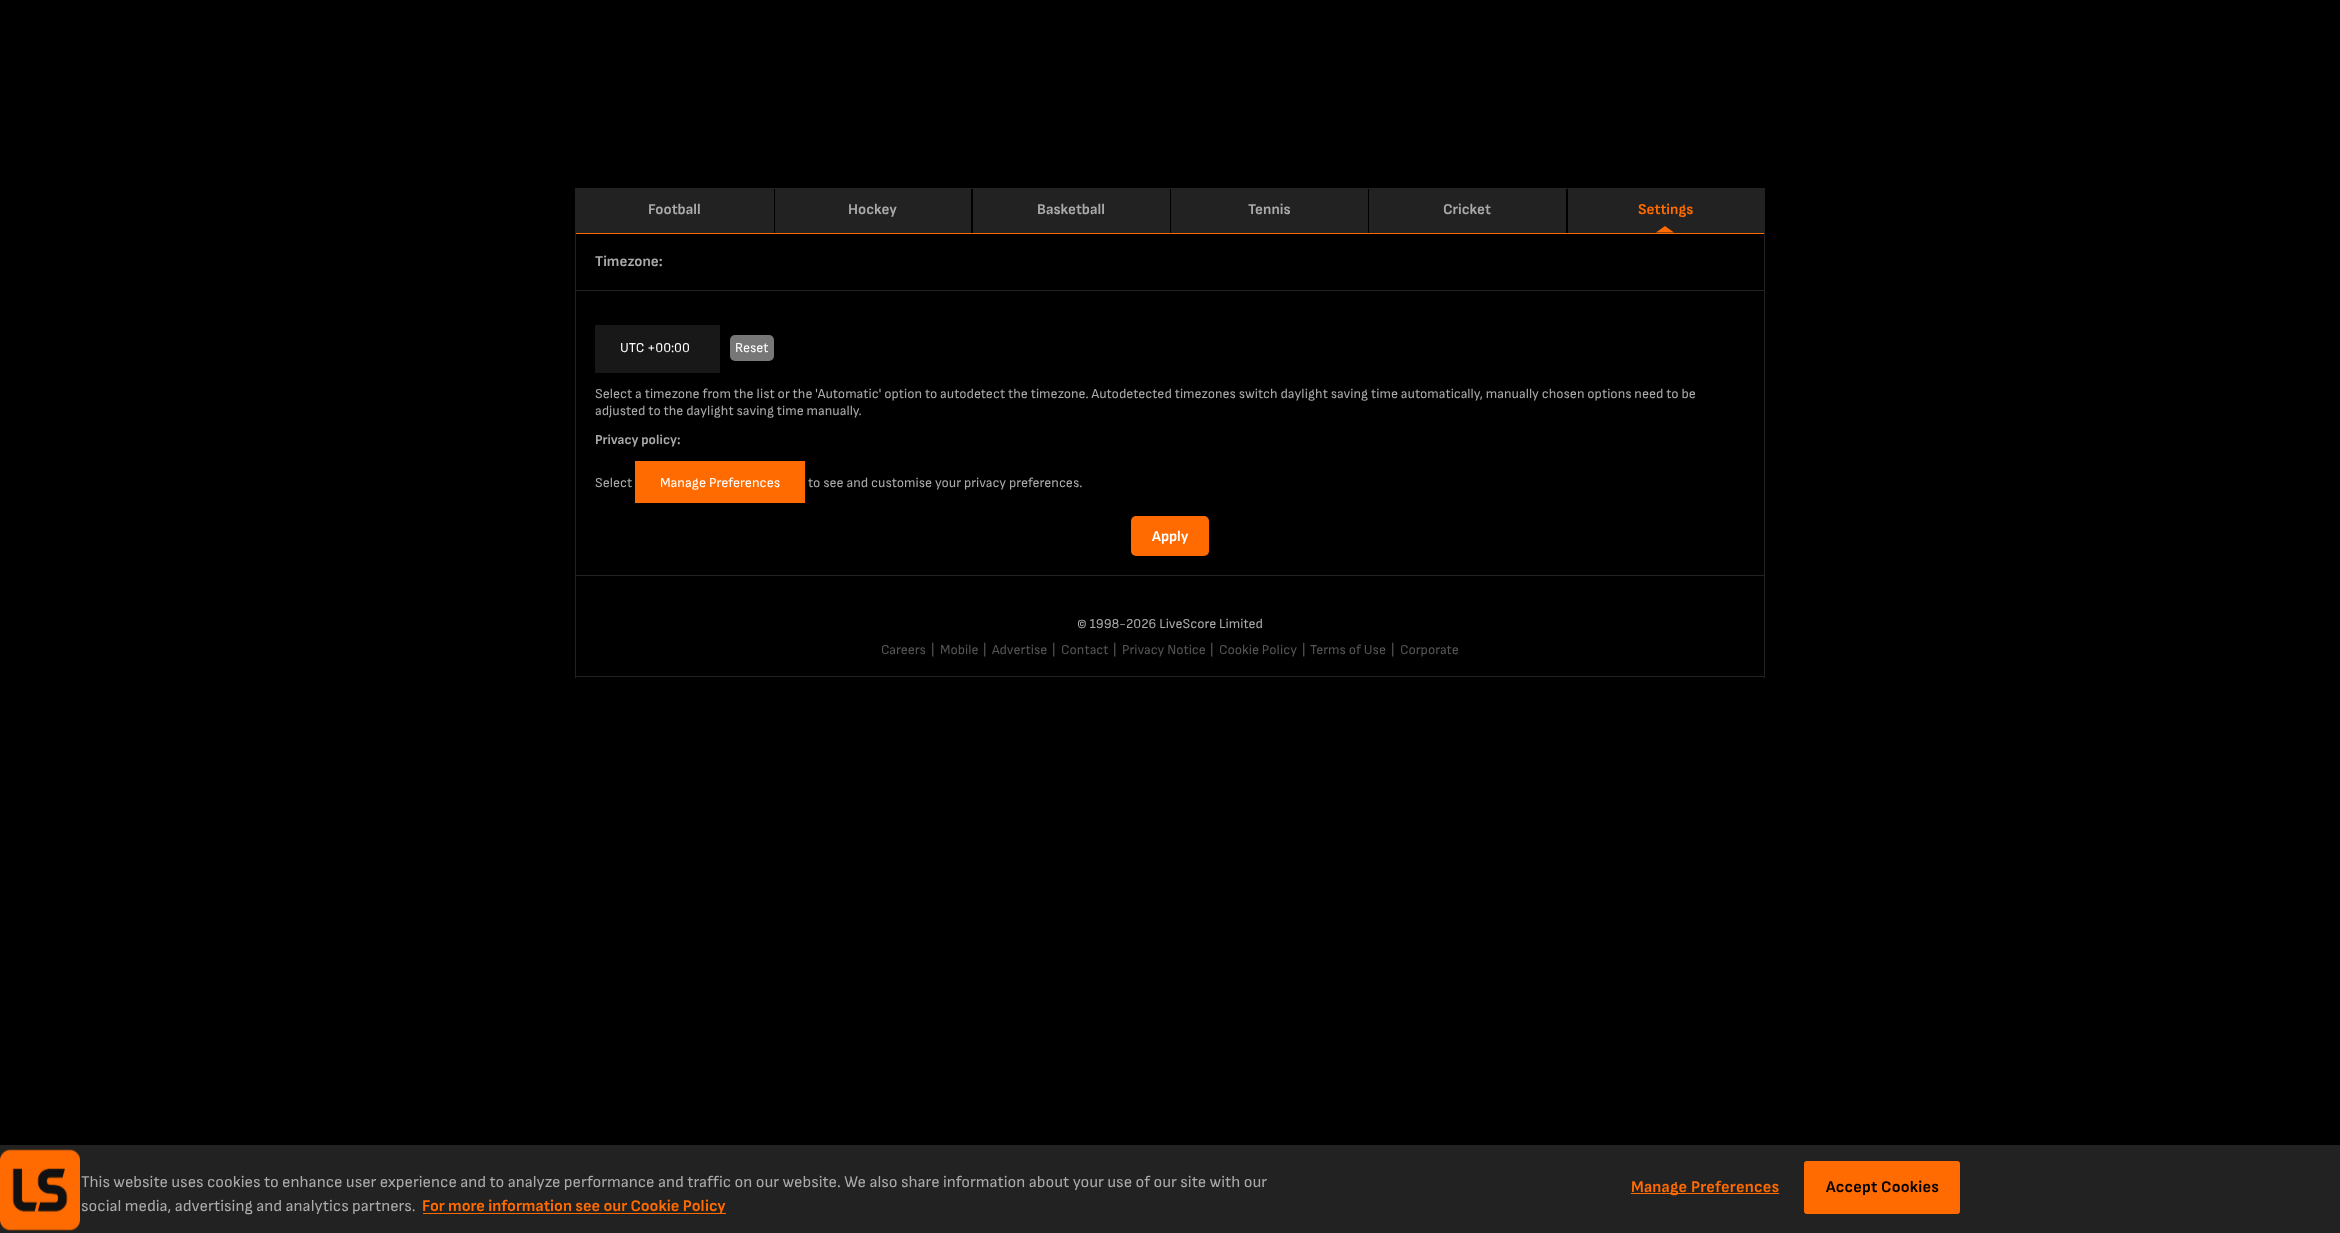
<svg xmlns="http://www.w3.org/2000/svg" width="2340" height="1233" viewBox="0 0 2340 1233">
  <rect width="100%" height="100%" fill="rgb(0,0,0)"/>
  <rect x="575.5" y="188.5" width="1189" height="387" fill="none" stroke="rgb(34,34,34)"/>
  <rect x="576" y="233" width="1188" height="1" fill="rgb(255,107,0)"/>
  <rect x="576" y="189" width="198" height="44" fill="rgb(34,34,34)"/>
  <text x="648" y="214" font-family="Sofia Sans" font-size="15" font-weight="bold" fill="rgb(170,170,170)">Football</text>
  <rect x="775" y="189" width="196" height="44" fill="rgb(34,34,34)"/>
  <text x="848" y="214" font-family="Sofia Sans" font-size="15" font-weight="bold" fill="rgb(170,170,170)">Hockey</text>
  <rect x="973" y="189" width="197" height="44" fill="rgb(34,34,34)"/>
  <text x="1037" y="214" font-family="Sofia Sans" font-size="15" font-weight="bold" fill="rgb(170,170,170)">Basketball</text>
  <rect x="1171" y="189" width="197" height="44" fill="rgb(34,34,34)"/>
  <text x="1248" y="214" font-family="Sofia Sans" font-size="15" font-weight="bold" fill="rgb(170,170,170)">Tennis</text>
  <rect x="1369" y="189" width="197" height="44" fill="rgb(34,34,34)"/>
  <text x="1443" y="214" font-family="Sofia Sans" font-size="15" font-weight="bold" fill="rgb(170,170,170)">Cricket</text>
  <rect x="1568" y="189" width="196" height="44" fill="rgb(34,34,34)"/>
  <text x="1638" y="214" font-family="Sofia Sans" font-size="15" font-weight="bold" fill="rgb(255,107,0)">Settings</text>
  <path d="M1674 232.5H1656L1665 226Z" fill="rgb(255,107,0)"/>
  <rect x="576" y="290" width="1188" height="1" fill="rgb(34,34,34)"/>
  <text x="595" y="266" font-family="Sofia Sans" font-size="15" font-weight="bold" fill="rgb(170,170,170)">Timezone:</text>
  <rect x="595" y="325" width="125" height="48" fill="rgb(24,24,24)"/>
  <text x="620" y="352" font-family="Sofia Sans" font-size="13.6" fill="rgb(255,255,255)">UTC +00:00</text>
  <rect x="730" y="335" width="44" height="26" rx="5" fill="rgb(119,119,119)"/>
  <text x="735" y="352" font-family="Sofia Sans" font-size="13.6" fill="rgb(255,255,255)">Reset</text>
  <g font-family="Sofia Sans" font-size="13.6" fill="rgb(170,170,170)">
    <text>
      <tspan x="595" y="398">Select a timezone from the list or the 'Automatic' option to autodetect the timezone. Autodetected timezones switch daylight saving time automatically, manually chosen options need to be</tspan>
      <tspan x="595" y="415">adjusted to the daylight saving time manually.</tspan>
    </text>
  </g>
  <text x="595" y="444" font-family="Sofia Sans" font-size="13.6" font-weight="bold" fill="rgb(170,170,170)">Privacy policy:</text>
  <text x="595" y="487" font-family="Sofia Sans" font-size="13.6" fill="rgb(170,170,170)">Select</text>
  <rect x="635" y="461" width="170" height="42" fill="rgb(255,107,0)"/>
  <text x="660" y="487" font-family="Sofia Sans" font-size="13.75" fill="rgb(255,255,255)">Manage Preferences</text>
  <text x="808" y="487" font-family="Sofia Sans" font-size="13.6" fill="rgb(170,170,170)">to see and customise your privacy preferences.</text>
  <rect x="1131" y="516" width="78" height="40" rx="5" fill="rgb(255,107,0)"/>
  <text x="1152" y="541" font-family="Sofia Sans" font-size="15" font-weight="bold" fill="rgb(255,255,255)">Apply</text>
  <rect x="1764" y="576" width="1" height="102" fill="rgb(34,34,34)"/>
  <rect x="575" y="676" width="1190" height="1" fill="rgb(34,34,34)"/>
  <rect x="575" y="576" width="1" height="102" fill="rgb(34,34,34)"/>
  <text x="1077" y="628" font-family="Sofia Sans" font-size="13.6" fill="rgb(170,170,170)">© 1998-2026 LiveScore Limited</text>
  <g font-family="Sofia Sans" font-size="13.6" fill="rgb(85,85,85)">
    <text x="881" y="654">Careers</text>
    <text x="931" y="654">|</text>
    <text x="940" y="654">Mobile</text>
    <text x="983" y="654">|</text>
    <text x="992" y="654">Advertise</text>
    <text x="1052" y="654">|</text>
    <text x="1061" y="654">Contact</text>
    <text x="1113" y="654">|</text>
    <text x="1122" y="654">Privacy Notice</text>
    <text x="1210" y="654">|</text>
    <text x="1219" y="654">Cookie Policy</text>
    <text x="1302" y="654">|</text>
    <text x="1310" y="654">Terms of Use</text>
    <text x="1391" y="654">|</text>
    <text x="1400" y="654">Corporate</text>
  </g>
  <rect x="0" y="1145" width="2340" height="88" fill="rgb(34,34,34)"/>
  <image x="0" y="1149" width="80" height="82" href="pic1.png"/>
  <g font-family="Sofia Sans" font-size="16.25" fill="rgb(170,170,170)">
    <text>
      <tspan x="81" y="1187">This website uses cookies to enhance user experience and to analyze performance and traffic on our website. We also share information about your use of our site with our</tspan>
      <tspan x="81" y="1211">social media, advertising and analytics partners.</tspan>
    </text>
  </g>
  <rect x="423" y="1213" width="303" height="1" fill="rgb(255,107,0)"/>
  <text x="422" y="1211" font-family="Sofia Sans" font-size="16.25" font-weight="bold" fill="rgb(255,107,0)">For more information see our Cookie Policy</text>
  <rect x="1631" y="1193" width="148" height="1" fill="rgb(255,107,0)"/>
  <text x="1631" y="1192" font-family="Sofia Sans" font-size="16.25" font-weight="bold" letter-spacing="0.2" fill="rgb(255,107,0)">Manage Preferences</text>
  <rect x="1804.5" y="1161.5" width="155" height="52" rx="2" fill="rgb(255,107,0)" stroke="rgb(255,107,0)"/>
  <text x="1826" y="1192" font-family="Sofia Sans" font-size="16.25" font-weight="bold" letter-spacing="0.2" fill="rgb(0,0,0)">Accept Cookies</text>
</svg>
